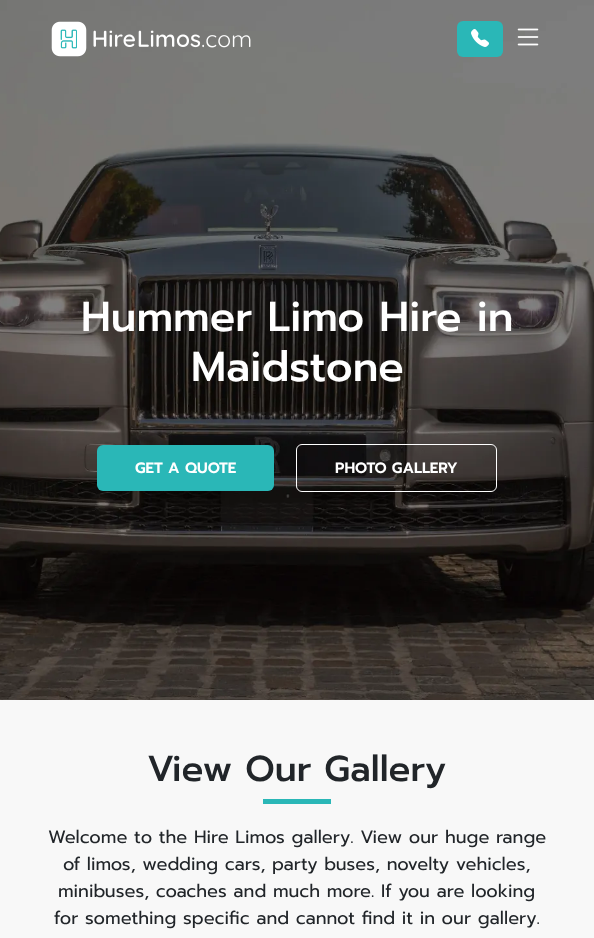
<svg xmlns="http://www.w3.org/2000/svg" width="594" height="938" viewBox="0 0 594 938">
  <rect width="100%" height="100%" fill="rgb(255,255,255)"/>
  <image x="0" y="0" width="594" height="700" href="pic4.png"/>
  <image x="51" y="21" width="200" height="36" href="pic1.png"/>
  <rect x="457" y="21" width="46" height="36" rx="6" fill="rgb(42,183,183)"/>
  <image x="471" y="29" width="18" height="18" href="pic2.png"/>
  <image x="517" y="28" width="22" height="18" href="pic3.png"/>
  <g font-family="Prompt" font-size="42" font-weight="500" fill="rgb(255,255,255)">
    <text x="81" y="331">Hummer Limo Hire in</text>
    <text x="191" y="381">Maidstone</text>
  </g>
  <rect x="97" y="445" width="177" height="46" rx="6" fill="rgb(42,183,183)"/>
  <text x="135" y="473" font-family="Prompt" font-size="15" font-weight="600" fill="rgb(255,255,255)">GET A QUOTE</text>
  <rect x="296.5" y="444.5" width="200" height="47" rx="5.5" fill="none" stroke="rgb(255,255,255)"/>
  <text x="335" y="473" font-family="Prompt" font-size="15" font-weight="600" fill="rgb(255,255,255)">PHOTO GALLERY</text>
  <rect x="0" y="700" width="594" height="238" fill="rgb(248,248,248)"/>
  <text x="147" y="781" font-family="Prompt" font-size="36" font-weight="500" fill="rgb(33,37,41)">View Our Gallery</text>
  <rect x="263" y="799" width="68" height="5" fill="rgb(42,183,183)"/>
  <g font-family="Prompt" font-size="18" fill="rgb(33,37,41)">
    <text x="48" y="843">Welcome to the Hire Limos gallery. View our huge range</text>
    <text x="63" y="870">of limos, wedding cars, party buses, novelty vehicles,</text>
    <text x="58" y="897">minibuses, coaches and much more. If you are looking</text>
    <text x="54" y="924">for something specific and cannot find it in our gallery.</text>
  </g>
</svg>
